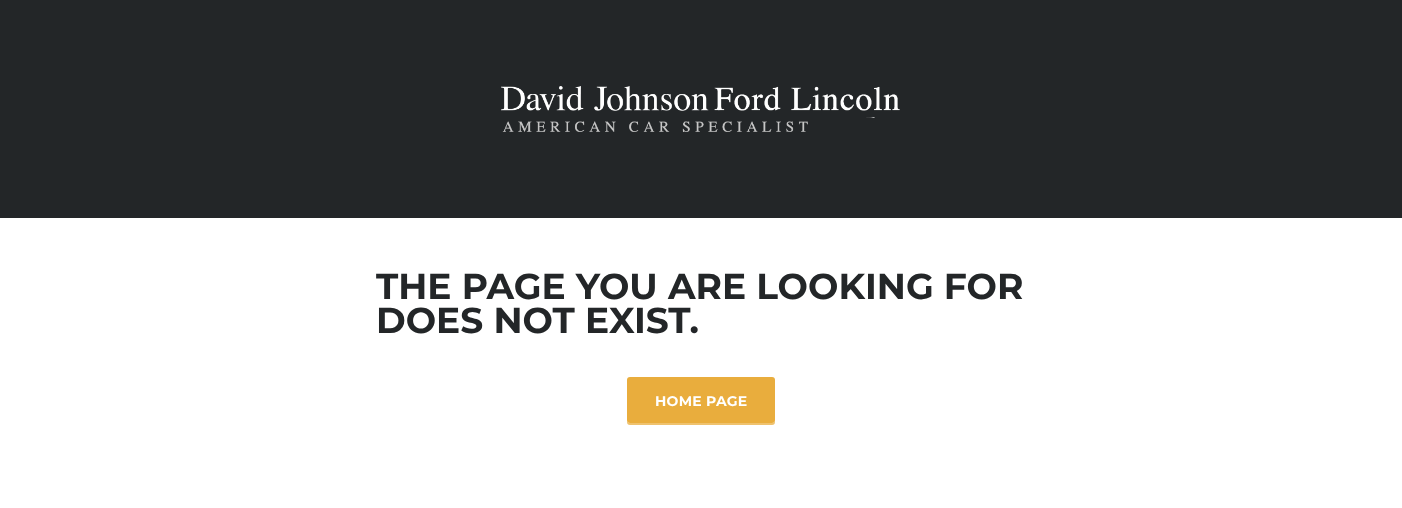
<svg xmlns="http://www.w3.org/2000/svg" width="1402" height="508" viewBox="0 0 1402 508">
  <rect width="100%" height="100%" fill="rgb(255,255,255)"/>
  <rect x="0" y="0" width="1402" height="218" fill="rgb(35,38,40)"/>
  <image x="501" y="86" width="399" height="46" href="pic1.png"/>
  <g font-family="Montserrat" font-size="36" font-weight="bold" fill="rgb(35,38,40)">
    <text>
      <tspan x="376" y="299">THE PAGE YOU ARE LOOKING FOR</tspan>
      <tspan x="376" y="333">DOES NOT EXIST.</tspan>
    </text>
  </g>
  <path d="M627 420V422C627 424 628 425 630 425H772C774 425 775 424 775 422V420C775 422 774 423 772 423H630C628 423 627 422 627 420Z" fill="rgb(239,194,110)"/>
  <rect x="627" y="377" width="148" height="46" rx="3" fill="rgb(233,173,61)"/>
  <text x="655" y="406" font-family="Montserrat" font-size="14" font-weight="bold" letter-spacing="0.25" fill="rgb(255,255,255)">HOME PAGE</text>
</svg>
